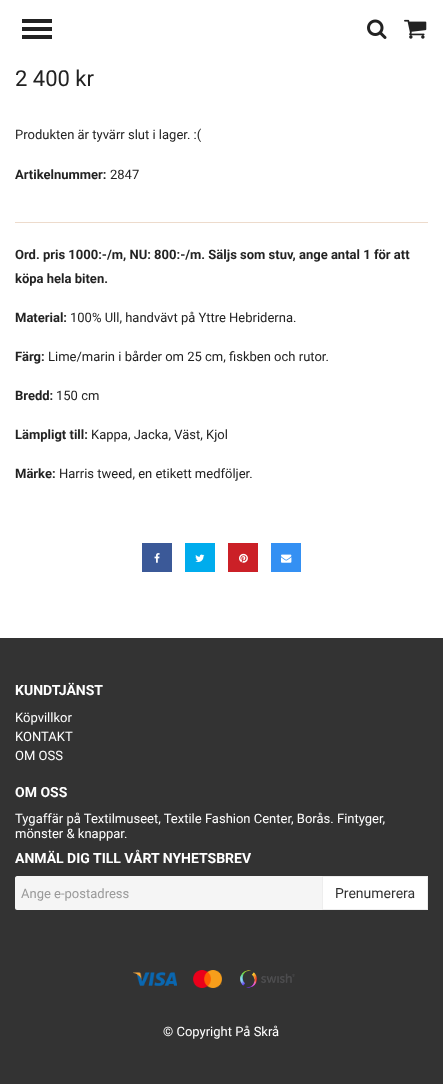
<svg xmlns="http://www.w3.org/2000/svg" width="443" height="1084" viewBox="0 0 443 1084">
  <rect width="100%" height="100%" fill="rgb(255,255,255)"/>
  <rect x="22" y="27" width="30" height="4" fill="rgb(34,34,34)"/>
  <rect x="22" y="19" width="30" height="4" fill="rgb(34,34,34)"/>
  <rect x="22" y="35" width="30" height="4" fill="rgb(34,34,34)"/>
  <image x="367" y="19" width="20" height="20" href="pic1.png"/>
  <image x="404" y="19" width="23" height="20" href="pic2.png"/>
  <text x="15" y="86" font-family="Roboto" font-size="22" fill="rgb(34,34,34)">2 400 kr</text>
  <text x="15" y="139" font-family="Roboto" font-size="13" fill="rgb(34,34,34)">Produkten är tyvärr slut i lager. :(</text>
  <text x="15" y="179" font-family="Roboto" font-size="13" font-weight="bold" fill="rgb(34,34,34)">Artikelnummer:</text>
  <text x="110" y="179" font-family="Roboto" font-size="13" fill="rgb(34,34,34)">2847</text>
  <rect x="15" y="222" width="413" height="1" fill="rgb(237,219,204)"/>
  <g font-family="Roboto" font-size="13" font-weight="bold" fill="rgb(34,34,34)">
    <text>
      <tspan x="15" y="259">Ord. pris 1000:-/m, NU: 800:-/m. Säljs som stuv, ange antal 1 för att</tspan>
      <tspan x="15" y="283">köpa hela biten.</tspan>
    </text>
    <text x="15" y="322">Material:</text>
  </g>
  <text x="70" y="322" font-family="Roboto" font-size="13" fill="rgb(34,34,34)">100% Ull, handvävt på Yttre Hebriderna.</text>
  <text x="15" y="361" font-family="Roboto" font-size="13" font-weight="bold" fill="rgb(34,34,34)">Färg:</text>
  <text x="48" y="361" font-family="Roboto" font-size="13" fill="rgb(34,34,34)">Lime/marin i bårder om 25 cm, fiskben och rutor.</text>
  <text x="15" y="400" font-family="Roboto" font-size="13" font-weight="bold" fill="rgb(34,34,34)">Bredd:</text>
  <text x="56" y="400" font-family="Roboto" font-size="13" fill="rgb(34,34,34)">150 cm</text>
  <text x="15" y="439" font-family="Roboto" font-size="13" font-weight="bold" fill="rgb(34,34,34)">Lämpligt till:</text>
  <text x="91" y="439" font-family="Roboto" font-size="13" fill="rgb(34,34,34)">Kappa, Jacka, Väst, Kjol</text>
  <text x="15" y="478" font-family="Roboto" font-size="13" font-weight="bold" fill="rgb(34,34,34)">Märke:</text>
  <text x="59" y="478" font-family="Roboto" font-size="13" fill="rgb(34,34,34)">Harris tweed, en etikett medföljer.</text>
  <rect x="142" y="543" width="30" height="29" fill="rgb(59,89,152)"/>
  <image x="154" y="553" width="6" height="10" href="pic3.png"/>
  <rect x="185" y="543" width="30" height="29" fill="rgb(0,172,237)"/>
  <image x="195" y="554" width="10" height="8" href="pic4.png"/>
  <rect x="228" y="543" width="30" height="29" fill="rgb(203,32,39)"/>
  <image x="239" y="553" width="9" height="10" href="pic5.png"/>
  <rect x="271" y="543" width="30" height="29" fill="rgb(52,144,243)"/>
  <image x="281" y="554" width="11" height="9" href="pic6.png"/>
  <rect x="0" y="638" width="443" height="446" fill="rgb(51,51,51)"/>
  <text x="15" y="695" font-family="Roboto" font-size="14" font-weight="bold" fill="rgb(255,255,255)">KUNDTJÄNST</text>
  <g font-family="Roboto" font-size="13" fill="rgb(255,255,255)">
    <text>
      <tspan x="15" y="722">Köpvillkor</tspan>
      <tspan x="15" y="741">KONTAKT</tspan>
      <tspan x="15" y="760">OM OSS</tspan>
    </text>
  </g>
  <text x="15" y="797" font-family="Roboto" font-size="14" font-weight="bold" fill="rgb(255,255,255)">OM OSS</text>
  <g font-family="Roboto" font-size="13" fill="rgb(255,255,255)">
    <text>
      <tspan x="15" y="823">Tygaffär på Textilmuseet, Textile Fashion Center, Borås. Fintyger,</tspan>
      <tspan x="15" y="838">mönster &amp; knappar.</tspan>
    </text>
  </g>
  <text x="15" y="863" font-family="Roboto" font-size="14" font-weight="bold" fill="rgb(255,255,255)">ANMÄL DIG TILL VÅRT NYHETSBREV</text>
  <path d="M17 876H323V910H17C16 910 15 909 15 908V878C15 877 16 876 17 876Z" fill="rgb(245,245,245)"/>
  <text x="21" y="898" font-family="Roboto" font-size="13" fill="rgb(153,153,153)">Ange e-postadress</text>
  <rect x="322.5" y="876.5" width="105" height="33" fill="rgb(255,255,255)" stroke="rgb(238,238,238)"/>
  <text x="335" y="898" font-family="Roboto" font-size="14" fill="rgb(51,51,51)">Prenumerera</text>
  <image x="133" y="972" width="44" height="14" href="pic7.png"/>
  <image x="193" y="970" width="29" height="18" href="pic8.png"/>
  <image x="240" y="970" width="55" height="18" href="pic9.png"/>
  <text x="163" y="1036" font-family="Roboto" font-size="13" fill="rgb(255,255,255)">© Copyright På Skrå</text>
</svg>
